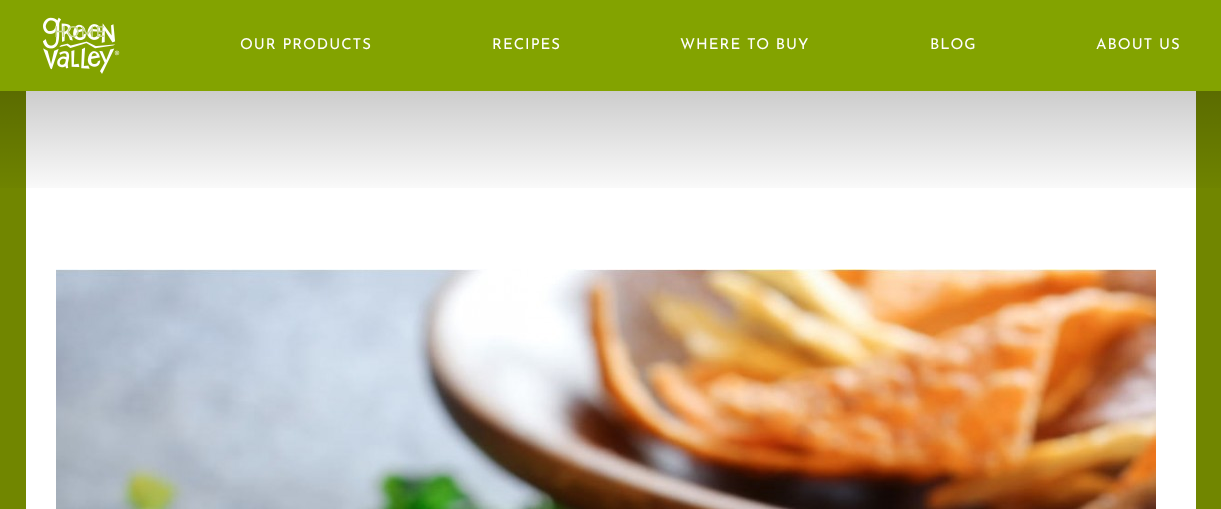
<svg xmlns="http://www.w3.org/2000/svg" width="1221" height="509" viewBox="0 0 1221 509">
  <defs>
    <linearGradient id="g1" gradientUnits="userSpaceOnUse" x1="611" y1="90" x2="611" y2="200"><stop offset="0" stop-color="rgb(0,0,0)" stop-opacity="0.2"/><stop offset="1" stop-color="rgb(0,0,0)" stop-opacity="0"/></linearGradient>
  </defs>
  <rect width="100%" height="100%" fill="rgb(113,134,0)"/>
  <rect x="0" y="0" width="1221" height="91" fill="rgb(131,163,0)"/>
  <image x="43" y="17" width="77" height="57" href="pic1.png"/>
  <text x="54" y="37" font-family="Josefin Sans" font-size="15" letter-spacing="1" fill="rgb(203,217,149)">HOME</text>
  <g font-family="Josefin Sans" font-size="15" letter-spacing="1" fill="rgb(255,255,255)">
    <text x="240" y="49">OUR PRODUCTS</text>
    <text x="492" y="49">RECIPES</text>
    <text x="680" y="49">WHERE TO BUY</text>
    <text x="930" y="49">BLOG</text>
    <text x="1096" y="49">ABOUT US</text>
  </g>
  <rect x="26" y="91" width="1170" height="418" fill="rgb(255,255,255)"/>
  <rect x="0" y="91" width="1221" height="97" fill="url(#g1)"/>
  <image x="56" y="269" width="1100" height="240" href="pic2.png"/>
</svg>
